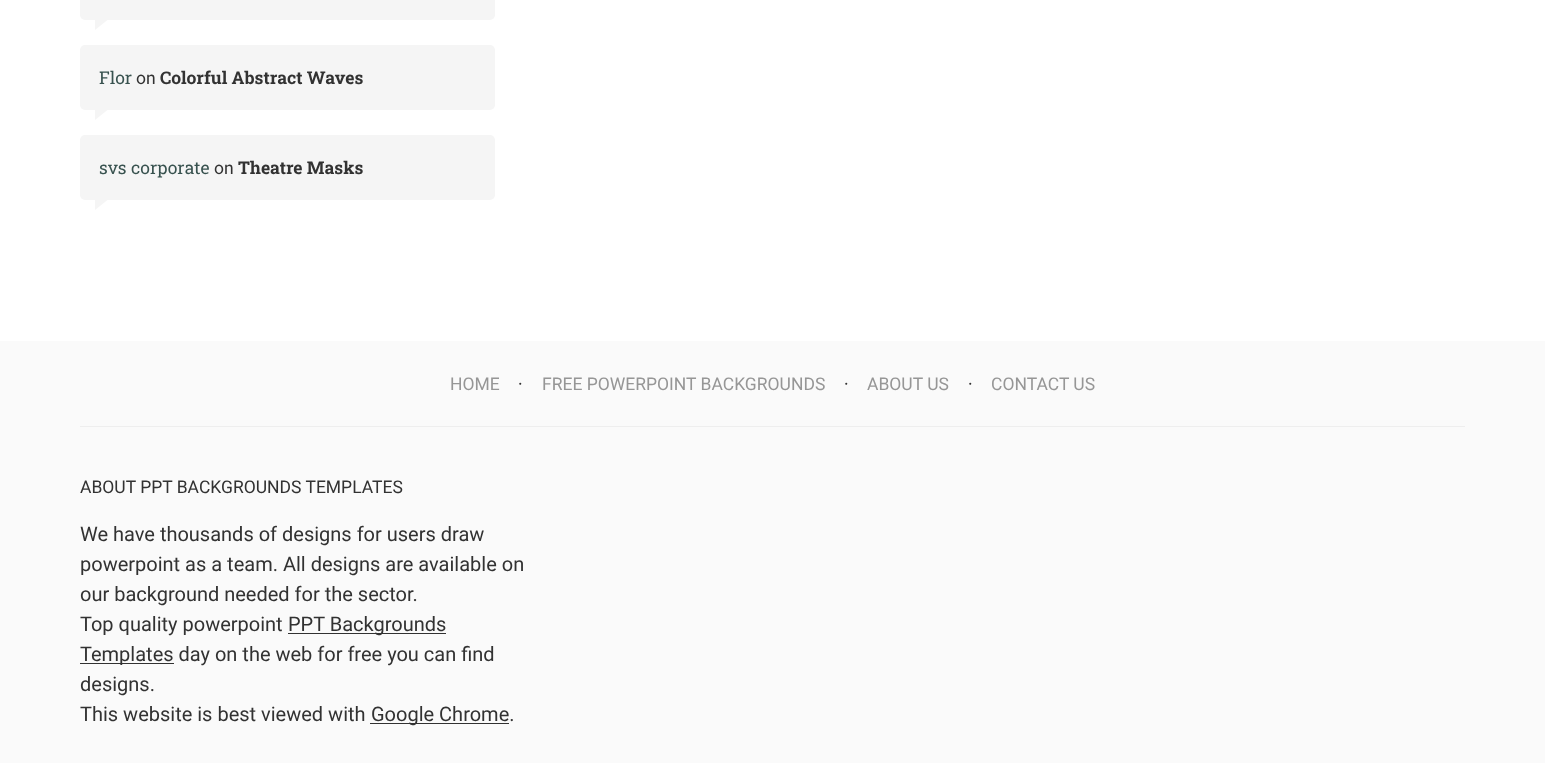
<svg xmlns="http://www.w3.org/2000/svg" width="1545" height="763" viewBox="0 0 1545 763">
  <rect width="100%" height="100%" fill="rgb(255,255,255)"/>
  <rect x="80" y="-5" width="415" height="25" rx="5" fill="rgb(245,245,245)"/>
  <path d="M95 30V10L107.5 20Z" fill="rgb(245,245,245)"/>
  <rect x="80" y="45" width="415" height="65" rx="5" fill="rgb(245,245,245)"/>
  <text x="99" y="84" font-family="Roboto Slab" font-size="17.5" fill="rgb(56,82,79)">Flor</text>
  <text x="136" y="84" font-family="Roboto" font-size="17.5" fill="rgb(50,50,50)">on</text>
  <text x="160" y="84" font-family="Roboto Slab" font-size="17.5" font-weight="bold" fill="rgb(50,50,50)">Colorful Abstract Waves</text>
  <path d="M95 120V100L107.5 110Z" fill="rgb(245,245,245)"/>
  <rect x="80" y="135" width="415" height="65" rx="5" fill="rgb(245,245,245)"/>
  <text x="99" y="174" font-family="Roboto Slab" font-size="17.5" fill="rgb(56,82,79)">svs corporate</text>
  <text x="214" y="174" font-family="Roboto" font-size="17.5" fill="rgb(50,50,50)">on</text>
  <text x="238" y="174" font-family="Roboto Slab" font-size="17.5" font-weight="bold" fill="rgb(50,50,50)">Theatre Masks</text>
  <path d="M95 210V190L107.5 200Z" fill="rgb(245,245,245)"/>
  <rect x="0" y="341" width="1545" height="422" fill="rgb(250,250,250)"/>
  <rect x="80" y="426" width="1385" height="1" fill="rgb(238,238,238)"/>
  <text x="450" y="390" font-family="Roboto" font-size="17.5" fill="rgb(150,150,150)">HOME</text>
  <text x="518" y="390" font-family="Roboto" font-size="17.5" fill="rgb(50,50,50)">·</text>
  <text x="542" y="390" font-family="Roboto" font-size="17.5" fill="rgb(150,150,150)">FREE POWERPOINT BACKGROUNDS</text>
  <text x="844" y="390" font-family="Roboto" font-size="17.5" fill="rgb(50,50,50)">·</text>
  <text x="867" y="390" font-family="Roboto" font-size="17.5" fill="rgb(150,150,150)">ABOUT US</text>
  <text x="968" y="390" font-family="Roboto" font-size="17.5" fill="rgb(50,50,50)">·</text>
  <text x="991" y="390" font-family="Roboto" font-size="17.5" fill="rgb(150,150,150)">CONTACT US</text>
  <text x="80" y="493" font-family="Roboto" font-size="17.5" fill="rgb(50,50,50)">ABOUT PPT BACKGROUNDS TEMPLATES</text>
  <g font-family="Roboto" font-size="20" fill="rgb(50,50,50)">
    <text>
      <tspan x="80" y="541">We have thousands of designs for users draw</tspan>
      <tspan x="80" y="571">powerpoint as a team. All designs are available on</tspan>
      <tspan x="80" y="601">our background needed for the sector.</tspan>
      <tspan x="80" y="631">Top quality powerpoint</tspan>
    </text>
  </g>
  <rect x="288" y="633" width="158" height="1" fill="rgb(50,50,50)"/>
  <text x="288" y="631" font-family="Roboto" font-size="20" fill="rgb(50,50,50)">PPT Backgrounds</text>
  <rect x="80" y="663" width="94" height="1" fill="rgb(50,50,50)"/>
  <g font-family="Roboto" font-size="20" fill="rgb(50,50,50)">
    <text>
      <tspan x="80" y="661">Templates day on the web for free you can find</tspan>
      <tspan x="80" y="691">designs.</tspan>
      <tspan x="80" y="721">This website is best viewed with</tspan>
    </text>
  </g>
  <rect x="370" y="723" width="139" height="1" fill="rgb(50,50,50)"/>
  <text x="371" y="721" font-family="Roboto" font-size="20" fill="rgb(50,50,50)">Google Chrome.</text>
</svg>
